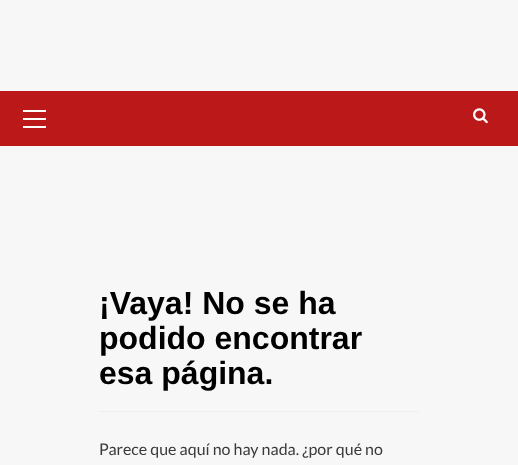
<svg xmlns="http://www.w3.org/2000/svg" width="518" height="465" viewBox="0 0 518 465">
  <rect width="100%" height="100%" fill="rgb(247,247,247)"/>
  <rect x="0" y="91" width="518" height="55" fill="rgb(187,25,25)"/>
  <rect x="23" y="118" width="23" height="2" fill="rgb(255,255,255)"/>
  <rect x="23" y="110" width="23" height="2" fill="rgb(255,255,255)"/>
  <rect x="23" y="126" width="23" height="2" fill="rgb(255,255,255)"/>
  <image x="473" y="108" width="15" height="16" href="pic1.png"/>
  <rect x="99" y="411" width="320" height="1" fill="rgb(238,238,238)"/>
  <g font-family="Liberation Sans" font-size="32" font-weight="bold" fill="rgb(0,0,0)">
    <text>
      <tspan x="99" y="314">¡Vaya! No se ha</tspan>
      <tspan x="99" y="349">podido encontrar</tspan>
      <tspan x="99" y="384">esa página.</tspan>
    </text>
  </g>
  <text x="99" y="455" font-family="Lato" font-size="16" fill="rgb(58,58,58)">Parece que aquí no hay nada. ¿por qué no</text>
</svg>
